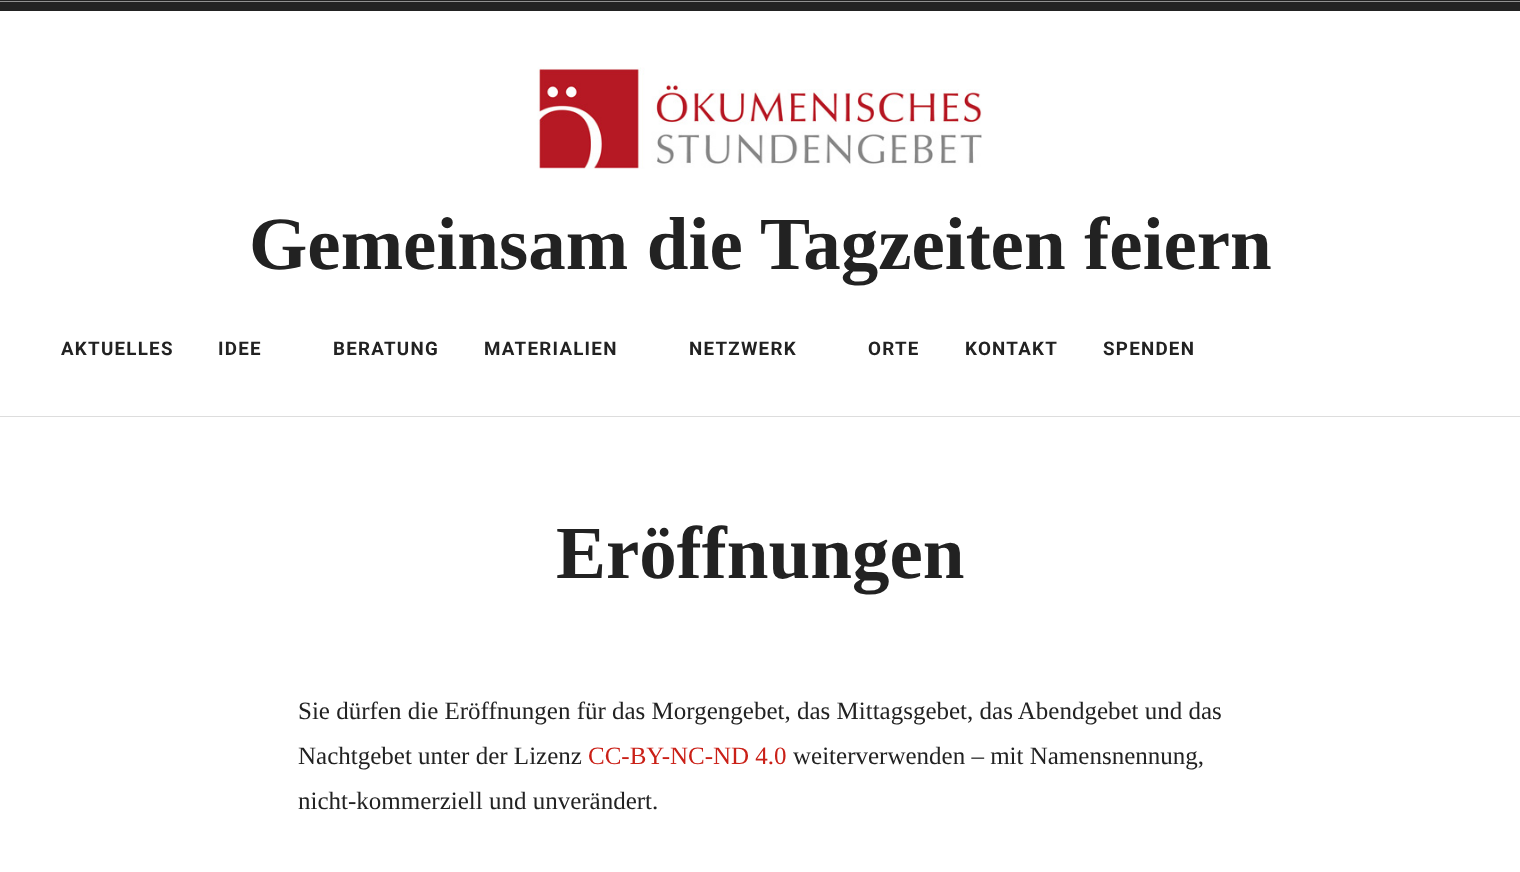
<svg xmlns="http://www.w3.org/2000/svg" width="1520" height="872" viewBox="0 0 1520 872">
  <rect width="100%" height="100%" fill="rgb(255,255,255)"/>
  <rect x="0" y="0" width="1520" height="11" fill="rgb(34,34,34)"/>
  <rect x="0" y="416" width="1520" height="1" fill="rgb(221,221,221)"/>
  <rect x="0" y="1" width="1520" height="1" fill="rgb(145,145,145)"/>
  <image x="537" y="67" width="445" height="102" href="pic1.png"/>
  <text x="249" y="269" font-family="Liberation Serif" font-size="75" font-weight="bold" fill="rgb(34,34,34)">Gemeinsam die Tagzeiten feiern</text>
  <g font-family="Roboto" font-size="18.75" font-weight="bold" letter-spacing="1.25" fill="rgb(34,34,34)">
    <text x="61" y="355">AKTUELLES</text>
    <text x="218" y="355">IDEE</text>
    <text x="333" y="355">BERATUNG</text>
    <text x="484" y="355">MATERIALIEN</text>
    <text x="689" y="355">NETZWERK</text>
    <text x="868" y="355">ORTE</text>
    <text x="965" y="355">KONTAKT</text>
    <text x="1103" y="355">SPENDEN</text>
  </g>
  <text x="556" y="578" font-family="Liberation Serif" font-size="75" font-weight="bold" fill="rgb(34,34,34)">Eröffnungen</text>
  <g font-family="Liberation Serif" font-size="25" fill="rgb(34,34,34)">
    <text>
      <tspan x="298" y="719">Sie dürfen die Eröffnungen für das Morgengebet, das Mittagsgebet, das Abendgebet und das</tspan>
      <tspan x="298" y="764">Nachtgebet unter der Lizenz</tspan>
    </text>
  </g>
  <text x="588" y="764" font-family="Liberation Serif" font-size="25" fill="rgb(202,32,23)">CC-BY-NC-ND 4.0</text>
  <g font-family="Liberation Serif" font-size="25" fill="rgb(34,34,34)">
    <text x="793" y="764">weiterverwenden – mit Namensnennung,</text>
    <text x="298" y="809">nicht-kommerziell und unverändert.</text>
  </g>
</svg>
